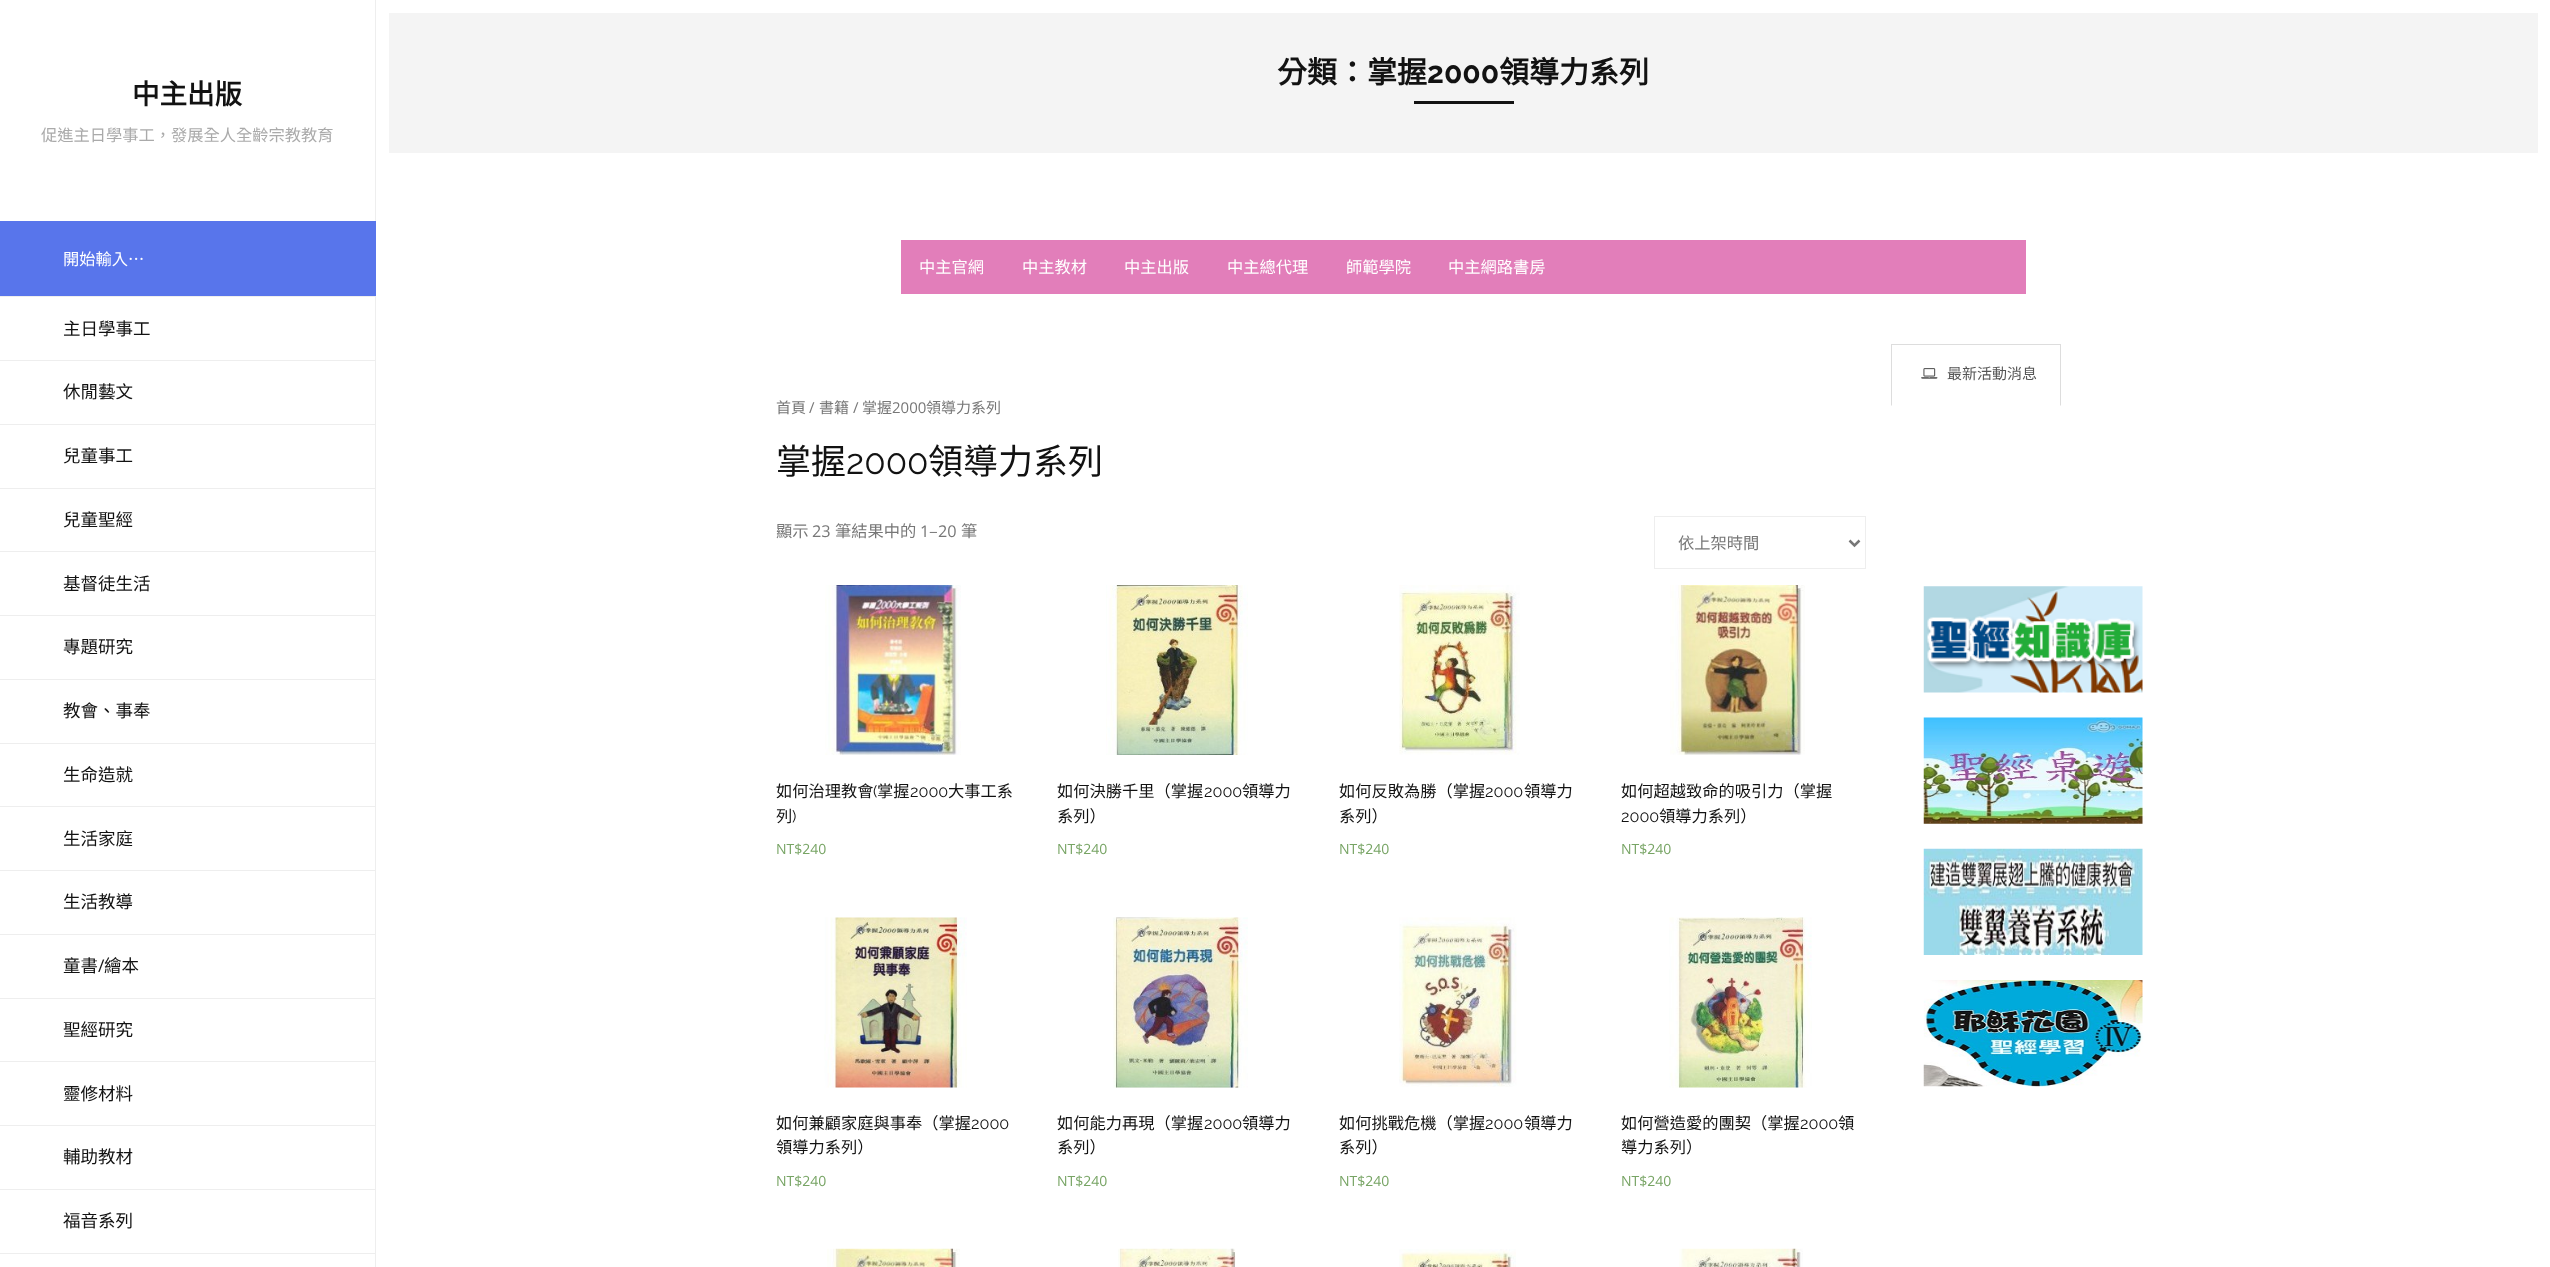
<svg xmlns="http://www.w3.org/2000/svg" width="2550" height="1267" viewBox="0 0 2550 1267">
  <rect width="100%" height="100%" fill="rgb(255,255,255)"/>
  <rect x="375" y="0" width="1" height="1267" fill="rgb(238,238,238)"/>
  <text x="132" y="104" font-family="Noto Sans CJK TC" font-size="27.5" font-weight="bold" fill="rgb(18,18,18)">中主出版</text>
  <text x="41" y="141" font-family="Noto Sans CJK TC" font-size="16.25" fill="rgb(170,170,170)">促進主日學事工，發展全人全齡宗教教育</text>
  <path d="M1 221H375V296H376V221Z" fill="rgb(88,117,235)"/>
  <rect x="0" y="221" width="375" height="75" fill="rgb(88,117,235)"/>
  <text x="63" y="265" font-family="Noto Sans CJK TC" font-size="16.25" fill="rgb(255,255,255)">開始輸入…</text>
  <rect x="0" y="296" width="375" height="1" fill="rgb(238,238,238)"/>
  <text x="63" y="335" font-family="Noto Sans CJK TC" font-size="17.5" fill="rgb(18,18,18)">主日學事工</text>
  <rect x="0" y="360" width="375" height="1" fill="rgb(238,238,238)"/>
  <text x="63" y="398" font-family="Noto Sans CJK TC" font-size="17.5" fill="rgb(18,18,18)">休閒藝文</text>
  <rect x="0" y="424" width="375" height="1" fill="rgb(238,238,238)"/>
  <text x="63" y="462" font-family="Noto Sans CJK TC" font-size="17.5" fill="rgb(18,18,18)">兒童事工</text>
  <rect x="0" y="488" width="375" height="1" fill="rgb(238,238,238)"/>
  <text x="63" y="526" font-family="Noto Sans CJK TC" font-size="17.5" fill="rgb(18,18,18)">兒童聖經</text>
  <rect x="0" y="551" width="375" height="1" fill="rgb(238,238,238)"/>
  <text x="63" y="590" font-family="Noto Sans CJK TC" font-size="17.5" fill="rgb(18,18,18)">基督徒生活</text>
  <rect x="0" y="615" width="375" height="1" fill="rgb(238,238,238)"/>
  <text x="63" y="653" font-family="Noto Sans CJK TC" font-size="17.5" fill="rgb(18,18,18)">專題研究</text>
  <rect x="0" y="679" width="375" height="1" fill="rgb(238,238,238)"/>
  <text x="63" y="717" font-family="Noto Sans CJK TC" font-size="17.5" fill="rgb(18,18,18)">教會、事奉</text>
  <rect x="0" y="743" width="375" height="1" fill="rgb(238,238,238)"/>
  <text x="63" y="781" font-family="Noto Sans CJK TC" font-size="17.5" fill="rgb(18,18,18)">生命造就</text>
  <rect x="0" y="806" width="375" height="1" fill="rgb(238,238,238)"/>
  <text x="63" y="845" font-family="Noto Sans CJK TC" font-size="17.5" fill="rgb(18,18,18)">生活家庭</text>
  <rect x="0" y="870" width="375" height="1" fill="rgb(238,238,238)"/>
  <text x="63" y="908" font-family="Noto Sans CJK TC" font-size="17.5" fill="rgb(18,18,18)">生活教導</text>
  <rect x="0" y="934" width="375" height="1" fill="rgb(238,238,238)"/>
  <text x="63" y="972" font-family="Noto Sans CJK TC" font-size="17.5" fill="rgb(18,18,18)">童書</text>
  <text x="98" y="972" font-family="Open Sans" font-size="17.5" fill="rgb(18,18,18)">/</text>
  <text x="104" y="972" font-family="Noto Sans CJK TC" font-size="17.5" fill="rgb(18,18,18)">繪本</text>
  <rect x="0" y="998" width="375" height="1" fill="rgb(238,238,238)"/>
  <text x="63" y="1036" font-family="Noto Sans CJK TC" font-size="17.5" fill="rgb(18,18,18)">聖經研究</text>
  <rect x="0" y="1061" width="375" height="1" fill="rgb(238,238,238)"/>
  <text x="63" y="1100" font-family="Noto Sans CJK TC" font-size="17.5" fill="rgb(18,18,18)">靈修材料</text>
  <rect x="0" y="1125" width="375" height="1" fill="rgb(238,238,238)"/>
  <text x="63" y="1163" font-family="Noto Sans CJK TC" font-size="17.5" fill="rgb(18,18,18)">輔助教材</text>
  <rect x="0" y="1189" width="375" height="1" fill="rgb(238,238,238)"/>
  <text x="63" y="1227" font-family="Noto Sans CJK TC" font-size="17.5" fill="rgb(18,18,18)">福音系列</text>
  <rect x="0" y="1253" width="375" height="1" fill="rgb(238,238,238)"/>
  <rect x="389" y="13" width="2149" height="140" fill="rgb(244,244,244)"/>
  <text x="1277" y="83" font-family="Noto Sans CJK TC" font-size="30" font-weight="bold" fill="rgb(18,18,18)">分類：掌握</text>
  <text x="1427" y="83" font-family="Raleway" font-size="30" font-weight="bold" fill="rgb(18,18,18)">2000</text>
  <text x="1499" y="83" font-family="Noto Sans CJK TC" font-size="30" font-weight="bold" fill="rgb(18,18,18)">領導力系列</text>
  <rect x="1414" y="101" width="100" height="3" fill="rgb(18,18,18)"/>
  <rect x="901" y="240" width="1125" height="54" fill="rgb(226,126,186)"/>
  <g font-family="Noto Sans CJK TC" font-size="16.25" fill="rgb(255,255,255)">
    <text x="919" y="273">中主官網</text>
    <text x="1022" y="273">中主教材</text>
    <text x="1124" y="273">中主出版</text>
    <text x="1227" y="273">中主總代理</text>
    <text x="1346" y="273">師範學院</text>
    <text x="1448" y="273">中主網路書房</text>
  </g>
  <rect x="1891" y="344" width="170" height="1" fill="rgb(221,221,221)"/>
  <path d="M2061 344V406L2060 405V345Z" fill="rgb(221,221,221)"/>
  <path d="M1891 406V344L1892 345V405Z" fill="rgb(221,221,221)"/>
  <image x="1921" y="368" width="17" height="11" href="pic1.png"/>
  <text x="1947" y="379" font-family="Noto Sans CJK TC" font-size="15" fill="rgb(85,85,85)">最新活動消息</text>
  <image x="1923" y="586" width="220" height="107" href="pic2.png"/>
  <image x="1923" y="717" width="220" height="107" href="pic3.png"/>
  <image x="1923" y="848" width="220" height="107" href="pic4.png"/>
  <image x="1923" y="980" width="220" height="107" href="pic5.png"/>
  <text x="776" y="413" font-family="Noto Sans CJK TC" font-size="15" fill="rgb(119,119,119)">首頁</text>
  <text x="809" y="413" font-family="Open Sans" font-size="15" fill="rgb(119,119,119)">/</text>
  <text x="819" y="413" font-family="Noto Sans CJK TC" font-size="15" fill="rgb(119,119,119)">書籍</text>
  <text x="853" y="413" font-family="Open Sans" font-size="15" fill="rgb(119,119,119)">/</text>
  <text x="862" y="413" font-family="Noto Sans CJK TC" font-size="15" fill="rgb(119,119,119)">掌握</text>
  <text x="892" y="413" font-family="Open Sans" font-size="15" fill="rgb(119,119,119)">2000</text>
  <text x="926" y="413" font-family="Noto Sans CJK TC" font-size="15" fill="rgb(119,119,119)">領導力系列</text>
  <text x="776" y="474" font-family="Noto Sans CJK TC" font-size="35" fill="rgb(18,18,18)">掌握</text>
  <text x="846" y="474" font-family="Raleway" font-size="35" fill="rgb(18,18,18)">2000</text>
  <text x="928" y="474" font-family="Noto Sans CJK TC" font-size="35" fill="rgb(18,18,18)">領導力系列</text>
  <text x="776" y="537" font-family="Noto Sans CJK TC" font-size="16.25" fill="rgb(119,119,119)">顯示</text>
  <text x="812" y="537" font-family="Open Sans" font-size="16.25" fill="rgb(119,119,119)">23</text>
  <text x="835" y="537" font-family="Noto Sans CJK TC" font-size="16.25" fill="rgb(119,119,119)">筆結果中的</text>
  <text x="920" y="537" font-family="Open Sans" font-size="16.25" fill="rgb(119,119,119)">1</text>
  <text x="929" y="537" font-family="Noto Sans CJK TC" font-size="16.25" fill="rgb(119,119,119)">–</text>
  <text x="938" y="537" font-family="Open Sans" font-size="16.25" fill="rgb(119,119,119)">20</text>
  <text x="961" y="537" font-family="Noto Sans CJK TC" font-size="16.25" fill="rgb(119,119,119)">筆</text>
  <rect x="1654.5" y="516.5" width="211" height="52" fill="none" stroke="rgb(238,238,238)"/>
  <path d="M1849.5 540.5L1854.5 545.5L1859.5 540.5" fill="none" stroke="rgb(119,119,119)" stroke-width="2.5"/>
  <text x="1678" y="549" font-family="Noto Sans CJK TC" font-size="16.25" fill="rgb(119,119,119)">依上架時間</text>
  <image x="825" y="585" width="136" height="170" href="pic6.png"/>
  <text x="776" y="797" font-family="Noto Sans CJK TC" font-size="16.25" fill="rgb(18,18,18)">如何治理教會</text>
  <text x="873" y="797" font-family="Raleway" font-size="16.25" fill="rgb(18,18,18)">(</text>
  <text x="877" y="797" font-family="Noto Sans CJK TC" font-size="16.25" fill="rgb(18,18,18)">掌握</text>
  <text x="910" y="797" font-family="Raleway" font-size="16.25" fill="rgb(18,18,18)">2000</text>
  <g font-family="Noto Sans CJK TC" font-size="16.25" fill="rgb(18,18,18)">
    <text x="948" y="797">大事工系</text>
    <text x="776" y="822">列</text>
  </g>
  <text x="792" y="822" font-family="Raleway" font-size="16.25" fill="rgb(18,18,18)">)</text>
  <text x="776" y="854" font-family="Open Sans" font-size="14" fill="rgb(119,164,100)">NT$240</text>
  <image x="1106" y="585" width="142" height="170" href="pic7.png"/>
  <text x="1057" y="797" font-family="Noto Sans CJK TC" font-size="16.25" fill="rgb(18,18,18)">如何決勝千里（掌握</text>
  <text x="1204" y="797" font-family="Raleway" font-size="16.25" fill="rgb(18,18,18)">2000</text>
  <g font-family="Noto Sans CJK TC" font-size="16.25" fill="rgb(18,18,18)">
    <text x="1242" y="797">領導力</text>
    <text x="1057" y="822">系列）</text>
  </g>
  <text x="1057" y="854" font-family="Open Sans" font-size="14" fill="rgb(119,164,100)">NT$240</text>
  <image x="1399" y="585" width="121" height="170" href="pic8.png"/>
  <text x="1339" y="797" font-family="Noto Sans CJK TC" font-size="16.25" fill="rgb(18,18,18)">如何反敗為勝（掌握</text>
  <text x="1485" y="797" font-family="Raleway" font-size="16.25" fill="rgb(18,18,18)">2000</text>
  <g font-family="Noto Sans CJK TC" font-size="16.25" fill="rgb(18,18,18)">
    <text x="1524" y="797">領導力</text>
    <text x="1339" y="822">系列）</text>
  </g>
  <text x="1339" y="854" font-family="Open Sans" font-size="14" fill="rgb(119,164,100)">NT$240</text>
  <image x="1670" y="585" width="135" height="170" href="pic9.png"/>
  <text x="1621" y="797" font-family="Noto Sans CJK TC" font-size="16.25" fill="rgb(18,18,18)">如何超越致命的吸引力（掌握</text>
  <text x="1621" y="822" font-family="Raleway" font-size="16.25" fill="rgb(18,18,18)">2000</text>
  <text x="1659" y="822" font-family="Noto Sans CJK TC" font-size="16.25" fill="rgb(18,18,18)">領導力系列）</text>
  <text x="1621" y="854" font-family="Open Sans" font-size="14" fill="rgb(119,164,100)">NT$240</text>
  <image x="824" y="917" width="143" height="171" href="pic10.png"/>
  <text x="776" y="1129" font-family="Noto Sans CJK TC" font-size="16.25" fill="rgb(18,18,18)">如何兼顧家庭與事奉（掌握</text>
  <text x="971" y="1129" font-family="Raleway" font-size="16.25" fill="rgb(18,18,18)">2000</text>
  <text x="776" y="1153" font-family="Noto Sans CJK TC" font-size="16.25" fill="rgb(18,18,18)">領導力系列）</text>
  <text x="776" y="1186" font-family="Open Sans" font-size="14" fill="rgb(119,164,100)">NT$240</text>
  <image x="1113" y="917" width="135" height="171" href="pic11.png"/>
  <text x="1057" y="1129" font-family="Noto Sans CJK TC" font-size="16.25" fill="rgb(18,18,18)">如何能力再現（掌握</text>
  <text x="1204" y="1129" font-family="Raleway" font-size="16.25" fill="rgb(18,18,18)">2000</text>
  <g font-family="Noto Sans CJK TC" font-size="16.25" fill="rgb(18,18,18)">
    <text x="1242" y="1129">領導力</text>
    <text x="1057" y="1153">系列）</text>
  </g>
  <text x="1057" y="1186" font-family="Open Sans" font-size="14" fill="rgb(119,164,100)">NT$240</text>
  <image x="1399" y="917" width="118" height="170" href="pic12.png"/>
  <text x="1339" y="1129" font-family="Noto Sans CJK TC" font-size="16.25" fill="rgb(18,18,18)">如何挑戰危機（掌握</text>
  <text x="1485" y="1129" font-family="Raleway" font-size="16.25" fill="rgb(18,18,18)">2000</text>
  <g font-family="Noto Sans CJK TC" font-size="16.25" fill="rgb(18,18,18)">
    <text x="1524" y="1129">領導力</text>
    <text x="1339" y="1153">系列）</text>
  </g>
  <text x="1339" y="1186" font-family="Open Sans" font-size="14" fill="rgb(119,164,100)">NT$240</text>
  <image x="1669" y="917" width="143" height="171" href="pic13.png"/>
  <text x="1621" y="1129" font-family="Noto Sans CJK TC" font-size="16.25" fill="rgb(18,18,18)">如何營造愛的團契（掌握</text>
  <text x="1800" y="1129" font-family="Raleway" font-size="16.25" fill="rgb(18,18,18)">2000</text>
  <g font-family="Noto Sans CJK TC" font-size="16.25" fill="rgb(18,18,18)">
    <text x="1838" y="1129">領</text>
    <text x="1621" y="1153">導力系列）</text>
  </g>
  <text x="1621" y="1186" font-family="Open Sans" font-size="14" fill="rgb(119,164,100)">NT$240</text>
  <image x="827" y="1248" width="133" height="19" href="pic14.png"/>
  <image x="1118" y="1248" width="118" height="19" href="pic15.png"/>
  <image x="1399" y="1249" width="117" height="18" href="pic16.png"/>
  <image x="1679" y="1248" width="124" height="19" href="pic17.png"/>
</svg>
